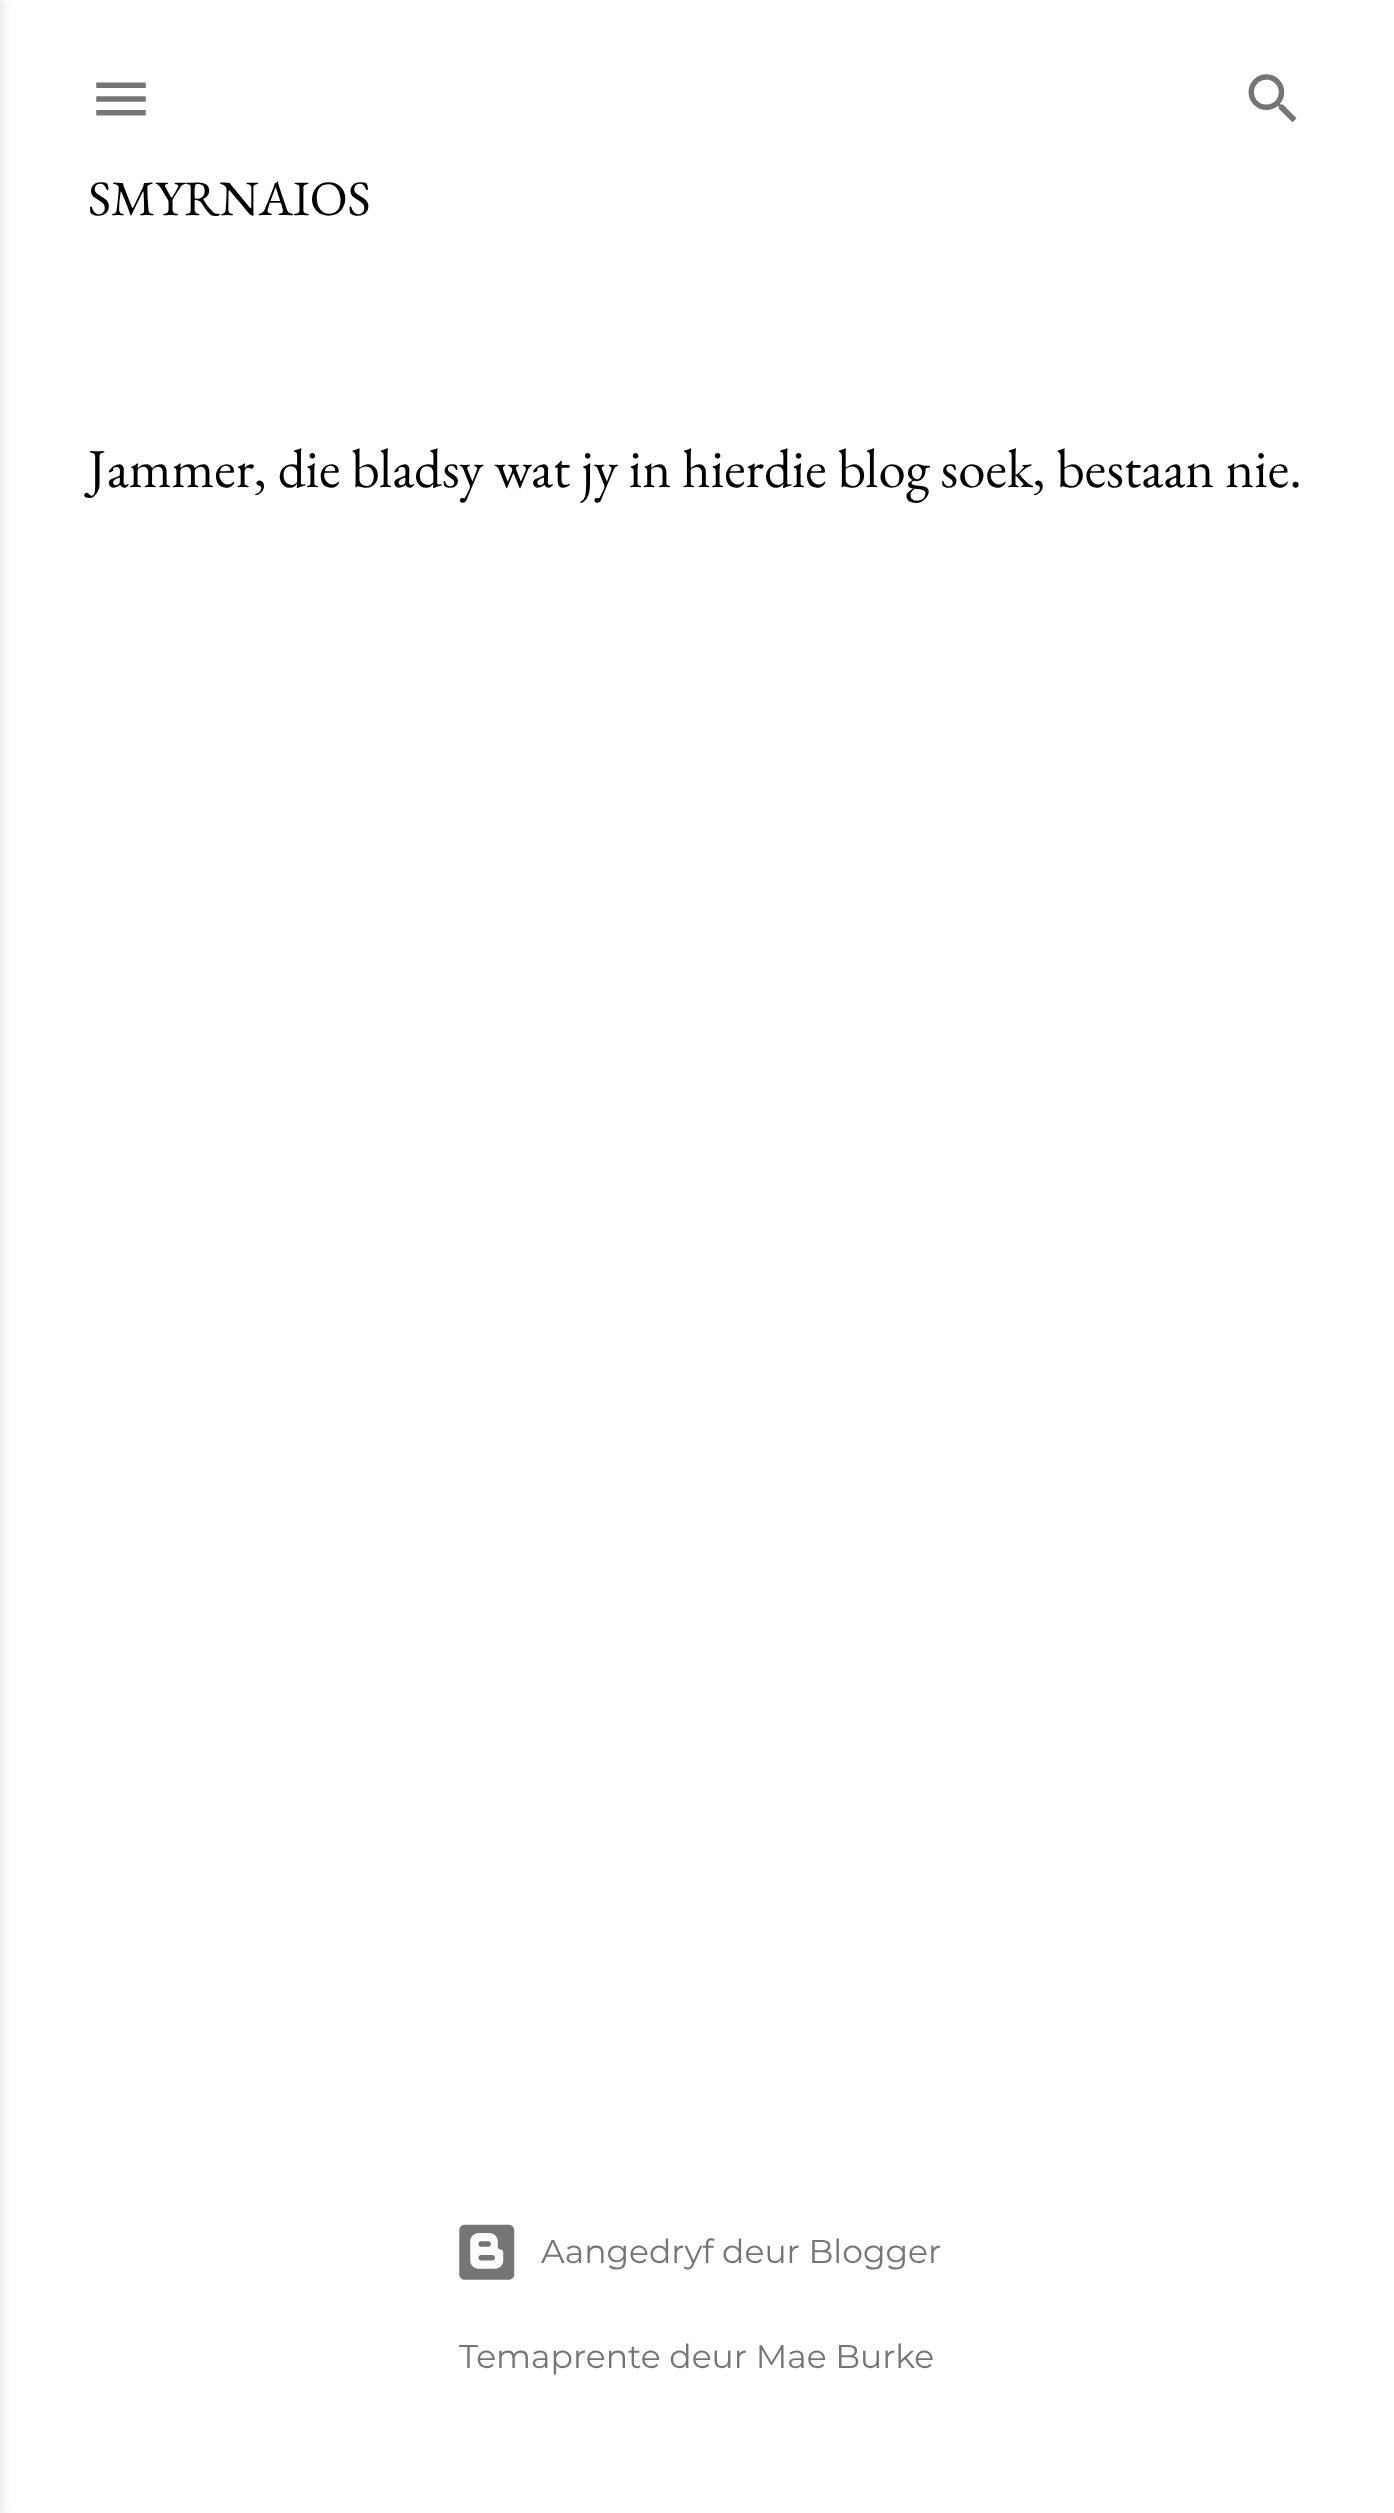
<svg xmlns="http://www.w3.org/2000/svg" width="1394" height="2513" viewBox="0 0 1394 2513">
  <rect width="100%" height="100%" fill="rgb(255,255,255)"/>
  <rect x="-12" y="0" width="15" height="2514" fill="rgba(0,0,0,0.1)" filter="blur(4px)"/>
  <image x="96" y="82" width="50" height="34" href="pic1.png"/>
  <image x="1248" y="74" width="49" height="49" href="pic2.png"/>
  <text x="88" y="215" font-family="EB Garamond" font-size="49.5" fill="rgb(0,0,0)">SMYRNAIOS</text>
  <text x="88" y="487" font-family="EB Garamond" font-size="55" fill="rgb(0,0,0)">Jammer, die bladsy wat jy in hierdie blog soek, bestaan nie.</text>
  <image x="459" y="2224" width="56" height="56" href="pic3.png"/>
  <g font-family="Montserrat" font-size="33" fill="rgb(117,117,117)">
    <text x="541" y="2263">Aangedryf deur Blogger</text>
    <text x="459" y="2368">Temaprente deur Mae Burke</text>
  </g>
</svg>
